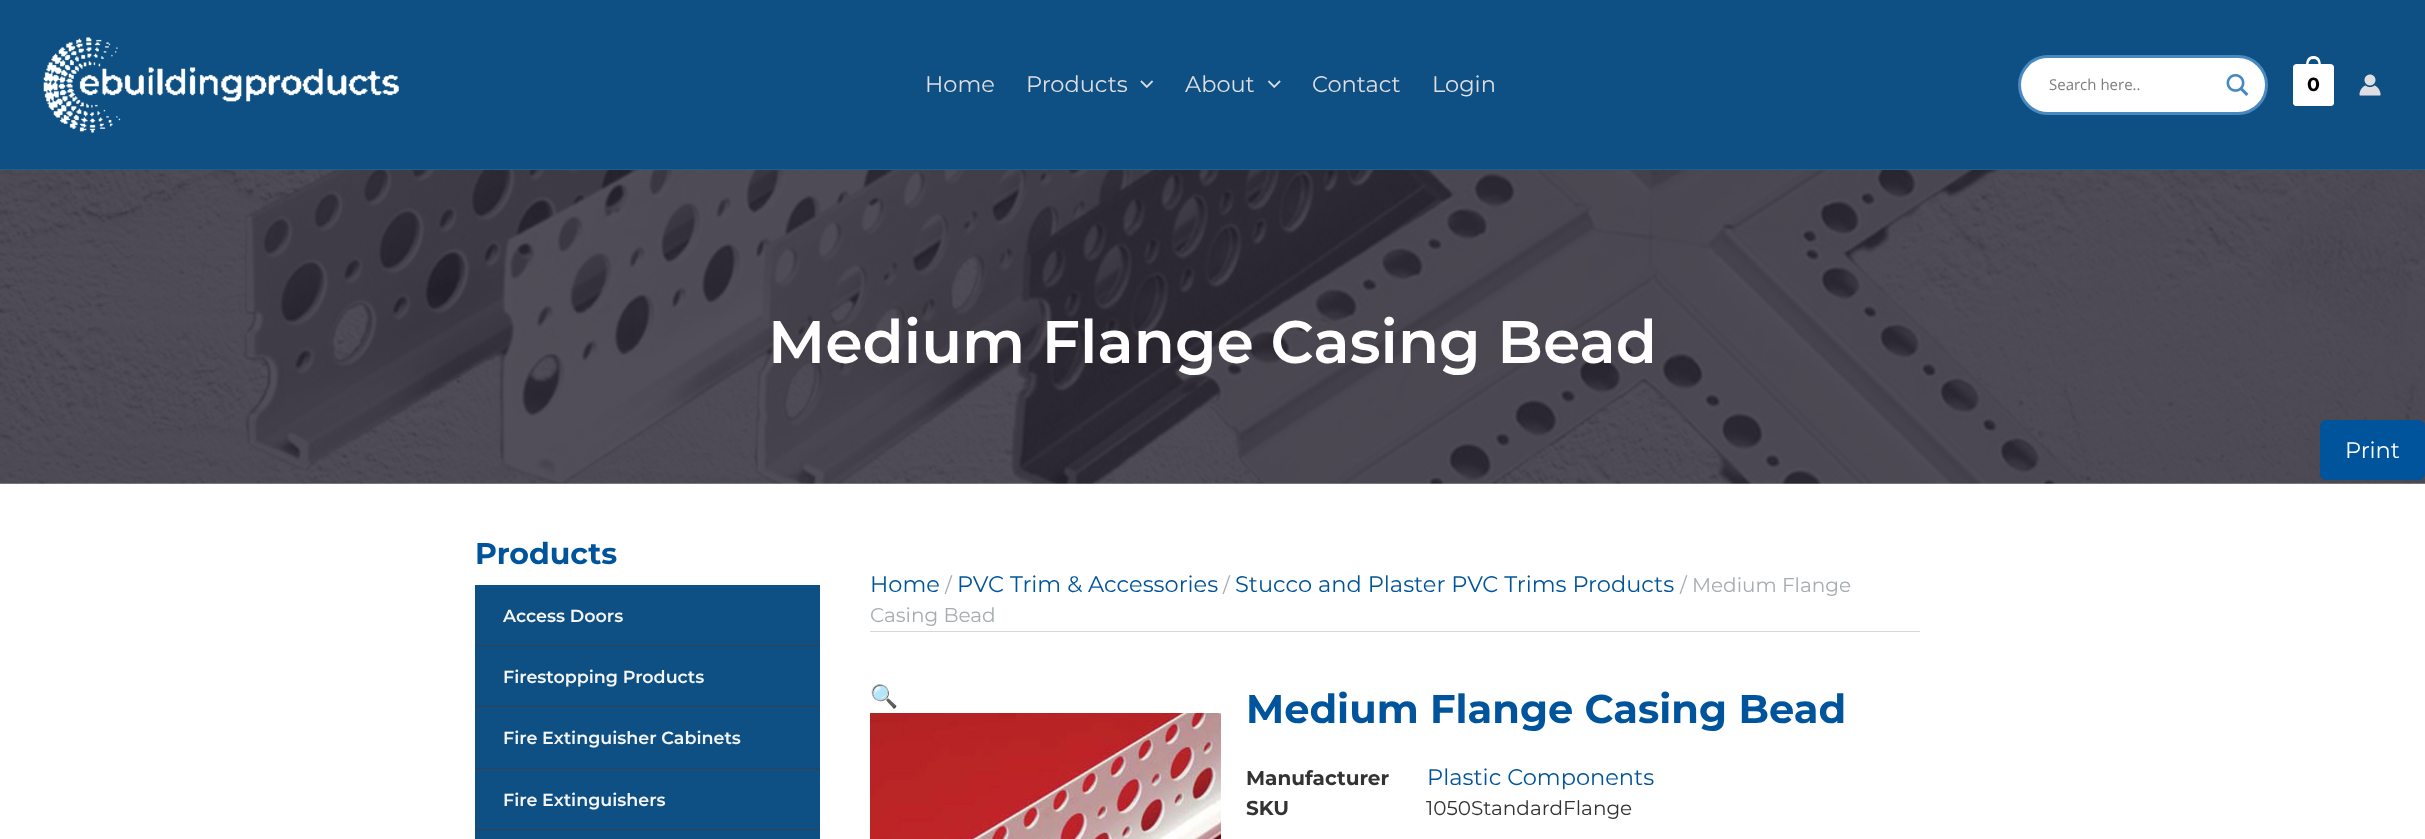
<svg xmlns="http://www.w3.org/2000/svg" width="2425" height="839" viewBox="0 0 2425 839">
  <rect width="100%" height="100%" fill="rgb(255,255,255)"/>
  <rect x="0" y="0" width="2425" height="169" fill="rgb(14,80,131)"/>
  <rect x="0" y="169" width="2425" height="1" fill="rgb(33,94,141)"/>
  <image x="43" y="37" width="356" height="96" href="pic1.png"/>
  <g font-family="Montserrat" font-size="22.5" fill="rgb(223,222,227)">
    <text x="925" y="92">Home</text>
    <text x="1026" y="92">Products</text>
  </g>
  <image x="1140" y="80" width="14" height="8" href="pic2.png"/>
  <text x="1185" y="92" font-family="Montserrat" font-size="22.5" fill="rgb(223,222,227)">About</text>
  <image x="1268" y="80" width="13" height="8" href="pic3.png"/>
  <g font-family="Montserrat" font-size="22.5" fill="rgb(223,222,227)">
    <text x="1312" y="92">Contact</text>
    <text x="1432" y="92">Login</text>
  </g>
  <rect x="2019.5" y="56.5" width="247" height="57" rx="28.5" fill="rgb(255,255,255)" stroke="rgb(74,137,191)" stroke-width="3"/>
  <text x="2049" y="90" font-family="Open Sans" font-size="15" fill="rgb(125,125,125)">Search here..</text>
  <image x="2226" y="73" width="23" height="23" href="pic4.png"/>
  <rect x="2293" y="64" width="41" height="42" rx="4" fill="rgb(255,255,255)"/>
  <rect x="2294.5" y="66.5" width="38" height="38" rx="2.5" fill="rgb(255,255,255)" stroke="rgb(255,255,255)" stroke-width="3"/>
  <path d="M2313.5 56C2322 56 2321 65.5 2321 71H2306C2306 65.5 2305 56 2313.5 56ZM2313.5 59C2320 59 2318.5 67 2318.5 71H2308.5C2308.5 67 2307 59 2313.5 59Z" fill="rgb(255,255,255)" fill-rule="evenodd"/>
  <text x="2307" y="91" font-family="Montserrat" font-size="19" font-weight="bold" fill="rgb(0,0,0)">0</text>
  <image x="2359" y="74" width="22" height="22" href="pic5.png"/>
  <image x="0" y="170" width="2425" height="314" href="pic6.png"/>
  <text x="768" y="363" font-family="Montserrat" font-size="60" font-weight="600" fill="rgb(255,255,255)">Medium Flange Casing Bead</text>
  <text x="475" y="564" font-family="Montserrat" font-size="30" font-weight="bold" fill="rgb(0,84,155)">Products</text>
  <rect x="475" y="585" width="345" height="60" fill="rgb(14,80,131)"/>
  <rect x="475" y="645" width="345" height="1" fill="rgb(56,63,74)"/>
  <text x="503" y="622" font-family="Montserrat" font-size="17.5" font-weight="600" fill="rgb(245,245,245)">Access Doors</text>
  <rect x="475" y="646" width="345" height="122" fill="rgb(14,80,131)"/>
  <rect x="475" y="706" width="345" height="1" fill="rgb(56,63,74)"/>
  <text x="503" y="683" font-family="Montserrat" font-size="17.5" font-weight="600" fill="rgb(245,245,245)">Firestopping Products</text>
  <rect x="475" y="768" width="345" height="1" fill="rgb(56,63,74)"/>
  <text x="503" y="744" font-family="Montserrat" font-size="17.5" font-weight="600" fill="rgb(245,245,245)">Fire Extinguisher Cabinets</text>
  <rect x="475" y="769" width="345" height="60" fill="rgb(14,80,131)"/>
  <rect x="475" y="829" width="345" height="1" fill="rgb(56,63,74)"/>
  <text x="503" y="806" font-family="Montserrat" font-size="17.5" font-weight="600" fill="rgb(245,245,245)">Fire Extinguishers</text>
  <rect x="475" y="830" width="345" height="9" fill="rgb(14,80,131)"/>
  <rect x="870" y="631" width="1050" height="1" fill="rgb(216,216,216)"/>
  <text x="870" y="592" font-family="Montserrat" font-size="22.5" fill="rgb(0,84,155)">Home</text>
  <text x="945" y="592" font-family="Montserrat" font-size="20" fill="rgb(166,172,175)">/</text>
  <text x="957" y="592" font-family="Montserrat" font-size="22.5" fill="rgb(0,84,155)">PVC Trim &amp; Accessories</text>
  <text x="1223" y="592" font-family="Montserrat" font-size="20" fill="rgb(166,172,175)">/</text>
  <text x="1235" y="592" font-family="Montserrat" font-size="22.5" fill="rgb(0,84,155)">Stucco and Plaster PVC Trims Products</text>
  <g font-family="Montserrat" font-size="20" fill="rgb(166,172,175)">
    <text x="1680" y="592">/ Medium Flange</text>
    <text x="870" y="622">Casing Bead</text>
  </g>
  <text x="870" y="704" font-family="Noto Color Emoji" font-size="22.5" fill="rgb(0,84,155)">🔍</text>
  <image x="870" y="713" width="351" height="126" href="pic7.png"/>
  <text x="1246" y="723" font-family="Montserrat" font-size="40" font-weight="bold" fill="rgb(0,84,155)">Medium Flange Casing Bead</text>
  <text x="1246" y="785" font-family="Montserrat" font-size="20" font-weight="bold" fill="rgb(51,51,51)">Manufacturer</text>
  <text x="1427" y="785" font-family="Montserrat" font-size="22.5" fill="rgb(0,84,155)">Plastic Components</text>
  <text x="1246" y="815" font-family="Montserrat" font-size="20" font-weight="bold" fill="rgb(51,51,51)">SKU</text>
  <text x="1426" y="815" font-family="Montserrat" font-size="20" fill="rgb(51,51,51)">1050StandardFlange</text>
  <rect x="2320" y="420" width="105" height="60" rx="6" fill="rgb(0,84,155)"/>
  <text x="2345" y="458" font-family="Montserrat" font-size="22.5" fill="rgb(255,255,255)">Print</text>
</svg>
